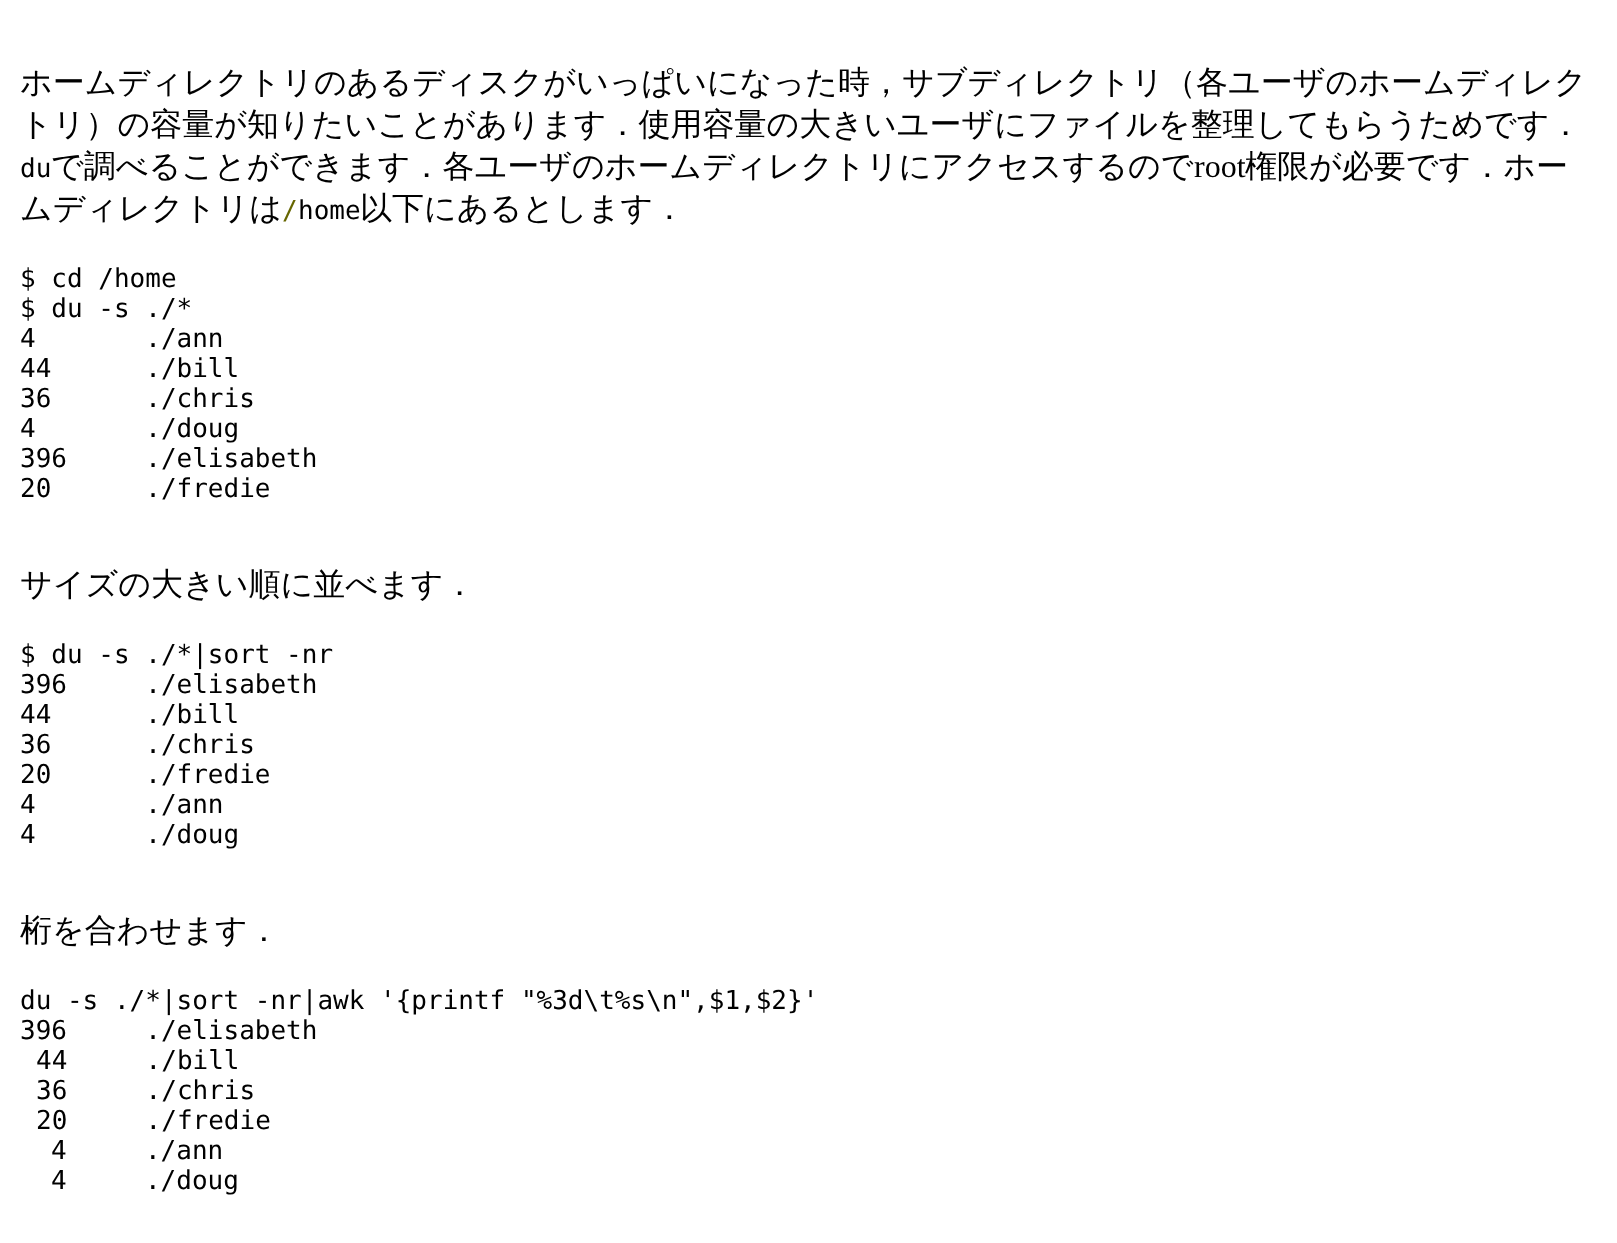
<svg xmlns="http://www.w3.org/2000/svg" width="1617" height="1243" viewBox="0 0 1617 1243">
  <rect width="100%" height="100%" fill="rgb(255,255,255)"/>
  <g font-family="WenQuanYi Zen Hei" font-size="32" font-weight="500" fill="rgb(0,0,0)">
    <text>
      <tspan x="20" y="93">ホームディレクトリのあるディスクがいっぱいになった時，サブディレクトリ（各ユーザのホームディレク</tspan>
      <tspan x="20" y="135">トリ）の容量が知りたいことがあります．使用容量の大きいユーザにファイルを整理してもらうためです．</tspan>
    </text>
  </g>
  <text x="20" y="177" font-family="DejaVu Sans Mono" font-size="26" fill="rgb(0,0,0)">du</text>
  <text x="51" y="177" font-family="WenQuanYi Zen Hei" font-size="32" font-weight="500" fill="rgb(0,0,0)">で調べることができます．各ユーザのホームディレクトリにアクセスするので</text>
  <text x="1194" y="177" font-family="Liberation Serif" font-size="32" fill="rgb(0,0,0)">root</text>
  <g font-family="WenQuanYi Zen Hei" font-size="32" font-weight="500" fill="rgb(0,0,0)">
    <text x="1245" y="177">権限が必要です．ホー</text>
    <text x="20" y="219">ムディレクトリは</text>
  </g>
  <text x="282" y="219" font-family="DejaVu Sans Mono" font-size="26" fill="rgb(102,102,0)">/</text>
  <text x="298" y="219" font-family="DejaVu Sans Mono" font-size="26" fill="rgb(0,0,0)">home</text>
  <text x="360" y="219" font-family="WenQuanYi Zen Hei" font-size="32" font-weight="500" fill="rgb(0,0,0)">以下にあるとします．</text>
  <g font-family="DejaVu Sans Mono" font-size="26" fill="rgb(0,0,0)">
    <text xml:space="preserve"><tspan x="20" y="287">$ cd /home</tspan><tspan x="20" y="317">$ du -s ./*</tspan><tspan x="20" y="347">4       ./ann</tspan><tspan x="20" y="377">44      ./bill</tspan><tspan x="20" y="407">36      ./chris</tspan><tspan x="20" y="437">4       ./doug</tspan><tspan x="20" y="467">396     ./elisabeth</tspan><tspan x="20" y="497">20      ./fredie</tspan></text>
  </g>
  <text x="20" y="595" font-family="WenQuanYi Zen Hei" font-size="32" font-weight="500" fill="rgb(0,0,0)">サイズの大きい順に並べます．</text>
  <g font-family="DejaVu Sans Mono" font-size="26" fill="rgb(0,0,0)">
    <text xml:space="preserve"><tspan x="20" y="663">$ du -s ./*|sort -nr</tspan><tspan x="20" y="693">396     ./elisabeth</tspan><tspan x="20" y="723">44      ./bill</tspan><tspan x="20" y="753">36      ./chris</tspan><tspan x="20" y="783">20      ./fredie</tspan><tspan x="20" y="813">4       ./ann</tspan><tspan x="20" y="843">4       ./doug</tspan></text>
  </g>
  <text x="20" y="941" font-family="WenQuanYi Zen Hei" font-size="32" font-weight="500" fill="rgb(0,0,0)">桁を合わせます．</text>
  <g font-family="DejaVu Sans Mono" font-size="26" fill="rgb(0,0,0)">
    <text xml:space="preserve"><tspan x="20" y="1009">du -s ./*|sort -nr|awk '{printf "%3d\t%s\n",$1,$2}'</tspan><tspan x="20" y="1039">396     ./elisabeth</tspan></text>
    <text xml:space="preserve"><tspan x="36" y="1069">44     ./bill</tspan><tspan x="36" y="1099">36     ./chris</tspan><tspan x="36" y="1129">20     ./fredie</tspan></text>
    <text xml:space="preserve"><tspan x="51" y="1159">4     ./ann</tspan><tspan x="51" y="1189">4     ./doug</tspan></text>
  </g>
</svg>
